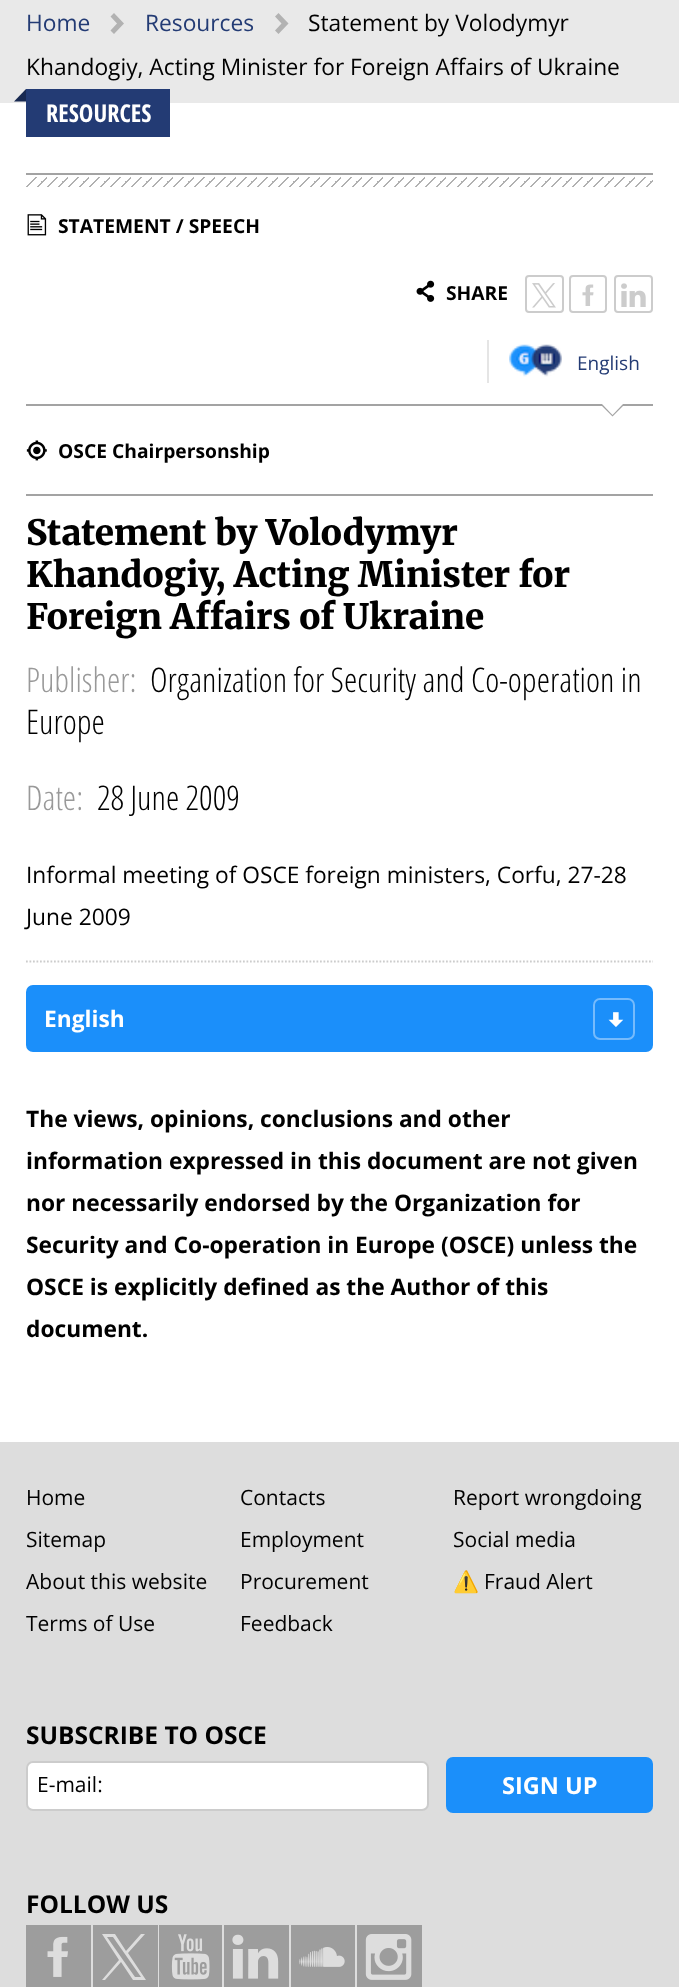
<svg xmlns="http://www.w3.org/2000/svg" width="679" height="1987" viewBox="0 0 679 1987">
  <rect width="100%" height="100%" fill="rgb(233,233,233)"/>
  <text x="26" y="31" font-family="Open Sans" font-size="22.75" fill="rgb(35,59,116)">Home</text>
  <path d="M114 34L110.5 30.5L117 23.5L110.5 16.5L114 13L124 23.5Z" fill="rgb(178,178,178)"/>
  <text x="145" y="31" font-family="Open Sans" font-size="22.75" fill="rgb(35,59,116)">Resources</text>
  <path d="M278.5 34L275 30.5L281.5 23.5L275 16.5L278.5 13L288.5 23.5Z" fill="rgb(178,178,178)"/>
  <g font-family="Open Sans" font-size="22.75" fill="rgb(0,0,0)">
    <text x="308" y="31">Statement by Volodymyr</text>
    <text x="26" y="75">Khandogiy, Acting Minister for Foreign Affairs of Ukraine</text>
  </g>
  <rect x="0" y="103" width="679" height="1339" fill="rgb(255,255,255)"/>
  <rect x="26" y="89" width="144" height="48" fill="rgb(35,59,116)"/>
  <path d="M26 101.5H14L26 89Z" fill="rgb(24,41,81)"/>
  <text x="46" y="122" font-family="Open Sans Condensed" font-size="24.5" font-weight="bold" fill="rgb(255,255,255)">RESOURCES</text>
  <rect x="26" y="173" width="627" height="2" fill="rgb(163,163,163)"/>
  <rect x="26" y="404" width="627" height="2" fill="rgb(163,163,163)"/>
  <image x="26" y="177" width="627" height="10" href="pic1.png"/>
  <image x="27" y="214" width="20" height="22" href="pic2.png"/>
  <text x="58" y="233" font-family="Open Sans" font-size="19.25" font-weight="bold" fill="rgb(0,0,0)">STATEMENT / SPEECH</text>
  <image x="416" y="280" width="19" height="22" href="pic3.png"/>
  <text x="446" y="300" font-family="Open Sans" font-size="19.25" font-weight="bold" fill="rgb(0,0,0)">SHARE</text>
  <rect x="526" y="276" width="37" height="36" rx="3" fill="none" stroke="rgb(204,204,204)" stroke-width="2"/>
  <image x="532" y="283" width="24" height="25" href="pic4.png"/>
  <rect x="570" y="276" width="36" height="36" rx="3" fill="none" stroke="rgb(204,204,204)" stroke-width="2"/>
  <image x="582" y="284" width="12" height="22" href="pic5.png"/>
  <rect x="615" y="276" width="37" height="36" rx="3" fill="none" stroke="rgb(204,204,204)" stroke-width="2"/>
  <image x="621" y="283" width="25" height="24" href="pic6.png"/>
  <rect x="487" y="340" width="2" height="43" fill="rgb(229,229,229)"/>
  <image x="509" y="344" width="53" height="33" href="pic7.png"/>
  <text x="577" y="370" font-family="Open Sans" font-size="19" fill="rgb(35,59,116)">English</text>
  <path d="M602 406H623L612.5 416.5Z" fill="rgb(163,163,163)"/>
  <path d="M602 404H623L612.5 415Z" fill="rgb(255,255,255)"/>
  <rect x="26" y="494" width="627" height="2" fill="rgb(163,163,163)"/>
  <image x="26" y="440" width="21" height="21" href="pic8.png"/>
  <text x="58" y="458" font-family="Open Sans" font-size="19.25" font-weight="bold" fill="rgb(0,0,0)">OSCE Chairpersonship</text>
  <g font-family="Merriweather" font-size="35" font-weight="300" fill="rgb(0,0,0)">
    <text>
      <tspan x="26" y="545">Statement by Volodymyr</tspan>
      <tspan x="26" y="587">Khandogiy, Acting Minister for</tspan>
      <tspan x="26" y="629">Foreign Affairs of Ukraine</tspan>
    </text>
  </g>
  <text x="26" y="692" font-family="Open Sans Condensed" font-size="33.9" font-weight="300" fill="rgb(153,153,153)">Publisher:</text>
  <g font-family="Open Sans Condensed" font-size="33.9" font-weight="300" fill="rgb(0,0,0)">
    <text x="150" y="692">Organization for Security and Co-operation in</text>
    <text x="26" y="734">Europe</text>
  </g>
  <text x="26" y="810" font-family="Open Sans Condensed" font-size="33.9" font-weight="300" fill="rgb(153,153,153)">Date:</text>
  <text x="97" y="810" font-family="Open Sans Condensed" font-size="33.9" font-weight="300" fill="rgb(0,0,0)">28 June 2009</text>
  <g font-family="Open Sans" font-size="22.75" fill="rgb(0,0,0)">
    <text>
      <tspan x="26" y="883">Informal meeting of OSCE foreign ministers, Corfu, 27-28</tspan>
      <tspan x="26" y="925">June 2009</tspan>
    </text>
  </g>
  <path d="M26 961.5H653" fill="none" stroke="rgb(204,204,204)" stroke-width="1.8" stroke-dasharray="1.75 1.75"/>
  <rect x="26" y="985" width="627" height="67" rx="7" fill="rgb(27,143,250)"/>
  <text x="44" y="1027" font-family="Open Sans" font-size="22.75" font-weight="bold" fill="rgb(255,255,255)">English</text>
  <rect x="594" y="999" width="40" height="40" rx="6" fill="none" stroke="rgb(118,187,252)" stroke-width="2"/>
  <image x="608" y="1012" width="16" height="15" href="pic9.png"/>
  <g font-family="Open Sans" font-size="22.75" font-weight="bold" fill="rgb(0,0,0)">
    <text>
      <tspan x="26" y="1127">The views, opinions, conclusions and other</tspan>
      <tspan x="26" y="1169">information expressed in this document are not given</tspan>
      <tspan x="26" y="1211">nor necessarily endorsed by the Organization for</tspan>
      <tspan x="26" y="1253">Security and Co-operation in Europe (OSCE) unless the</tspan>
      <tspan x="26" y="1295">OSCE is explicitly defined as the Author of this</tspan>
      <tspan x="26" y="1337">document.</tspan>
    </text>
  </g>
  <rect x="0" y="1442" width="679" height="545" fill="rgb(221,221,221)"/>
  <g font-family="Open Sans" font-size="21" fill="rgb(0,0,0)">
    <text x="26" y="1505">Home</text>
    <text x="240" y="1505">Contacts</text>
    <text x="453" y="1505">Report wrongdoing</text>
    <text x="26" y="1547">Sitemap</text>
    <text x="240" y="1547">Employment</text>
    <text x="453" y="1547">Social media</text>
    <text x="26" y="1589">About this website</text>
    <text x="240" y="1589">Procurement</text>
  </g>
  <text x="453" y="1589" font-family="Noto Color Emoji" font-size="21" fill="rgb(0,0,0)">⚠️</text>
  <g font-family="Open Sans" font-size="21" fill="rgb(0,0,0)">
    <text x="484" y="1589">Fraud Alert</text>
    <text x="26" y="1631">Terms of Use</text>
    <text x="240" y="1631">Feedback</text>
  </g>
  <text x="26" y="1744" font-family="Open Sans" font-size="24.5" font-weight="bold" fill="rgb(0,0,0)">SUBSCRIBE TO OSCE</text>
  <rect x="27" y="1762" width="401" height="48" rx="6" fill="rgb(255,255,255)" stroke="rgb(204,204,204)" stroke-width="2"/>
  <text x="37" y="1792" font-family="Open Sans" font-size="21" fill="rgb(0,0,0)">E-mail:</text>
  <rect x="447" y="1758" width="205" height="54" rx="6" fill="rgb(27,143,250)" stroke="rgb(27,143,250)" stroke-width="2"/>
  <text x="502" y="1794" font-family="Open Sans" font-size="23.5" font-weight="bold" fill="rgb(255,255,255)">SIGN UP</text>
  <text x="26" y="1913" font-family="Open Sans" font-size="24.5" font-weight="bold" fill="rgb(0,0,0)">FOLLOW US</text>
  <rect x="26" y="1925" width="65" height="62" fill="rgb(157,157,157)"/>
  <image x="47" y="1936" width="21" height="41" href="pic10.png"/>
  <rect x="93" y="1925" width="65" height="62" fill="rgb(157,157,157)"/>
  <path d="M128 1953L145 1934H141L126 1951L115 1934H102L119 1960L102 1980H105L121 1962L133 1980H146ZM123 1960L107 1937H113L141 1977H135Z" fill="rgb(221,221,221)"/>
  <rect x="159" y="1925" width="63" height="62" fill="rgb(157,157,157)"/>
  <image x="171" y="1934" width="39" height="46" href="pic11.png"/>
  <rect x="224" y="1925" width="65" height="62" fill="rgb(157,157,157)"/>
  <image x="232" y="1934" width="47" height="45" href="pic12.png"/>
  <rect x="291" y="1925" width="64" height="62" fill="rgb(157,157,157)"/>
  <image x="299" y="1947" width="46" height="20" href="pic13.png"/>
  <rect x="357" y="1925" width="65" height="62" fill="rgb(157,157,157)"/>
  <image x="365" y="1934" width="47" height="46" href="pic14.png"/>
</svg>
